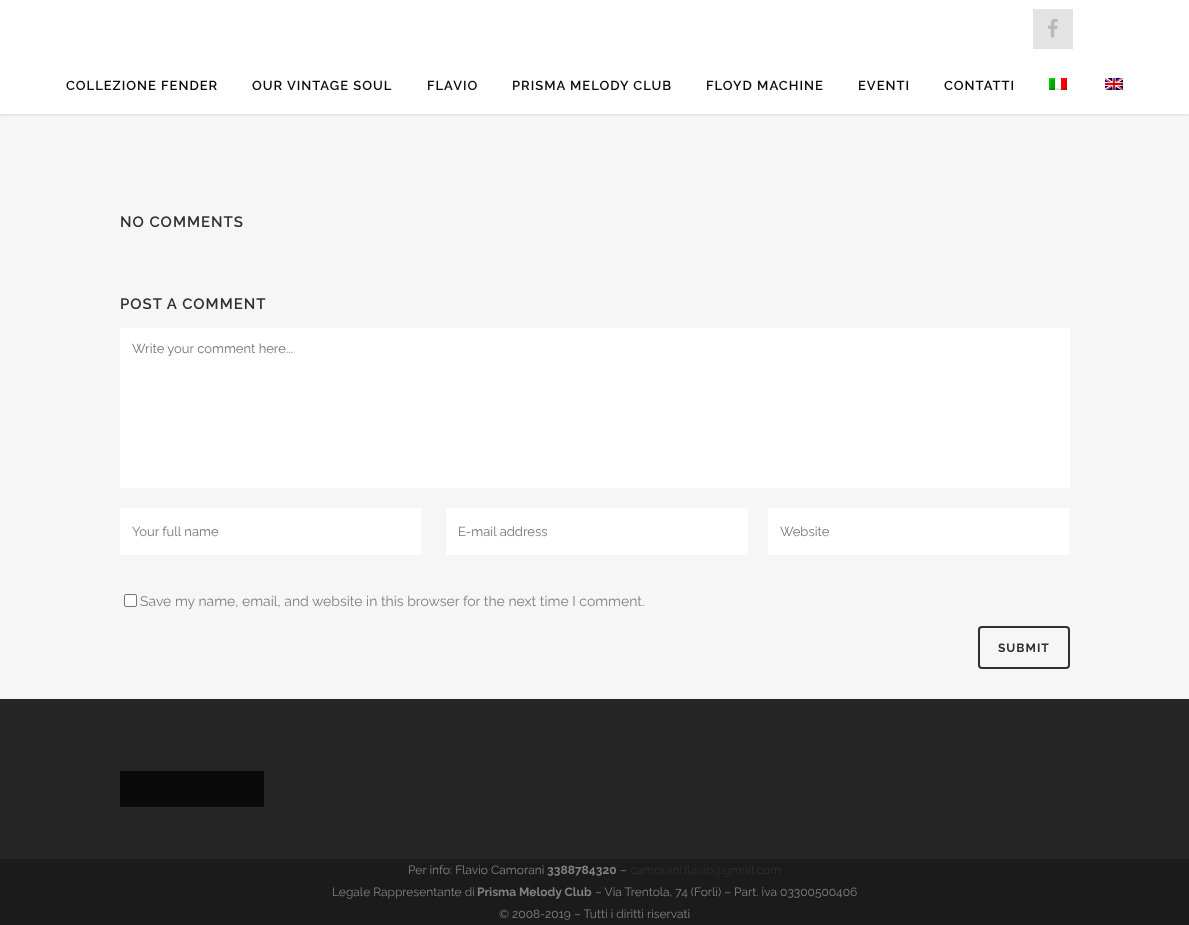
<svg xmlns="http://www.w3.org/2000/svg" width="1189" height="925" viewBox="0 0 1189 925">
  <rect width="100%" height="100%" fill="rgb(246,246,246)"/>
  <rect x="0" y="1" width="1189" height="114" fill="rgba(0,0,0,0.11)" filter="blur(1.5px)"/>
  <rect x="0" y="0" width="1189" height="114" fill="rgb(255,255,255)"/>
  <rect x="1033" y="9" width="40" height="40" fill="rgb(227,227,227)"/>
  <image x="1048" y="18" width="10" height="20" href="pic1.png"/>
  <g font-family="Raleway" font-size="13" font-weight="600" letter-spacing="1" fill="rgb(10,10,10)">
    <text x="66" y="90">COLLEZIONE FENDER</text>
    <text x="252" y="90">OUR VINTAGE SOUL</text>
    <text x="427" y="90">FLAVIO</text>
    <text x="512" y="90">PRISMA MELODY CLUB</text>
    <text x="706" y="90">FLOYD MACHINE</text>
    <text x="858" y="90">EVENTI</text>
    <text x="944" y="90">CONTATTI</text>
  </g>
  <image x="1049" y="78" width="18" height="12" href="pic2.png"/>
  <image x="1105" y="78" width="18" height="12" href="pic3.png"/>
  <g font-family="Raleway" font-size="15" font-weight="600" letter-spacing="1" fill="rgb(48,48,48)">
    <text x="120" y="227">NO COMMENTS</text>
    <text x="120" y="309">POST A COMMENT</text>
  </g>
  <rect x="120" y="328" width="950" height="160" fill="rgb(255,255,255)"/>
  <text x="132" y="353" font-family="Raleway" font-size="13" fill="rgb(117,117,117)">Write your comment here...</text>
  <rect x="120" y="508" width="301" height="47" fill="rgb(255,255,255)"/>
  <text x="132" y="536" font-family="Raleway" font-size="13" fill="rgb(117,117,117)">Your full name</text>
  <rect x="446" y="508" width="302" height="47" fill="rgb(255,255,255)"/>
  <text x="458" y="536" font-family="Raleway" font-size="13" fill="rgb(117,117,117)">E-mail address</text>
  <rect x="768" y="508" width="301" height="47" fill="rgb(255,255,255)"/>
  <text x="780" y="536" font-family="Raleway" font-size="13" fill="rgb(117,117,117)">Website</text>
  <rect x="124.5" y="594.5" width="12" height="12" rx="1.5" fill="rgb(255,255,255)" stroke="rgb(118,118,118)"/>
  <text x="140" y="606" font-family="Raleway" font-size="14" fill="rgb(129,129,129)">Save my name, email, and website in this browser for the next time I comment.</text>
  <rect x="979" y="627" width="90" height="41" rx="3" fill="none" stroke="rgb(48,48,48)" stroke-width="2"/>
  <text x="998" y="652" font-family="Raleway" font-size="12" font-weight="bold" letter-spacing="1" fill="rgb(48,48,48)">SUBMIT</text>
  <rect x="0" y="699" width="1189" height="160" fill="rgb(38,38,38)"/>
  <rect x="120" y="771" width="144" height="36" fill="rgb(10,10,10)"/>
  <rect x="0" y="859" width="1189" height="66" fill="rgb(27,27,27)"/>
  <text x="408" y="874" font-family="Raleway" font-size="12" fill="rgb(129,129,129)">Per info: Flavio Camorani</text>
  <text x="547" y="874" font-family="Raleway" font-size="12" font-weight="bold" fill="rgb(129,129,129)">3388784320</text>
  <text x="620" y="874" font-family="Raleway" font-size="12" fill="rgb(129,129,129)">–</text>
  <text x="630" y="874" font-family="Raleway" font-size="12" fill="rgb(48,48,48)">camorani.flavio@gmail.com</text>
  <text x="332" y="896" font-family="Raleway" font-size="12" fill="rgb(129,129,129)">Legale Rappresentante di</text>
  <text x="477" y="896" font-family="Raleway" font-size="12" font-weight="bold" fill="rgb(129,129,129)">Prisma Melody Club</text>
  <g font-family="Raleway" font-size="12" fill="rgb(129,129,129)">
    <text x="595" y="896">– Via Trentola, 74 (Forlì) – Part. iva 03300500406</text>
    <text x="499" y="918">© 2008-2019 – Tutti i diritti riservati</text>
  </g>
</svg>
